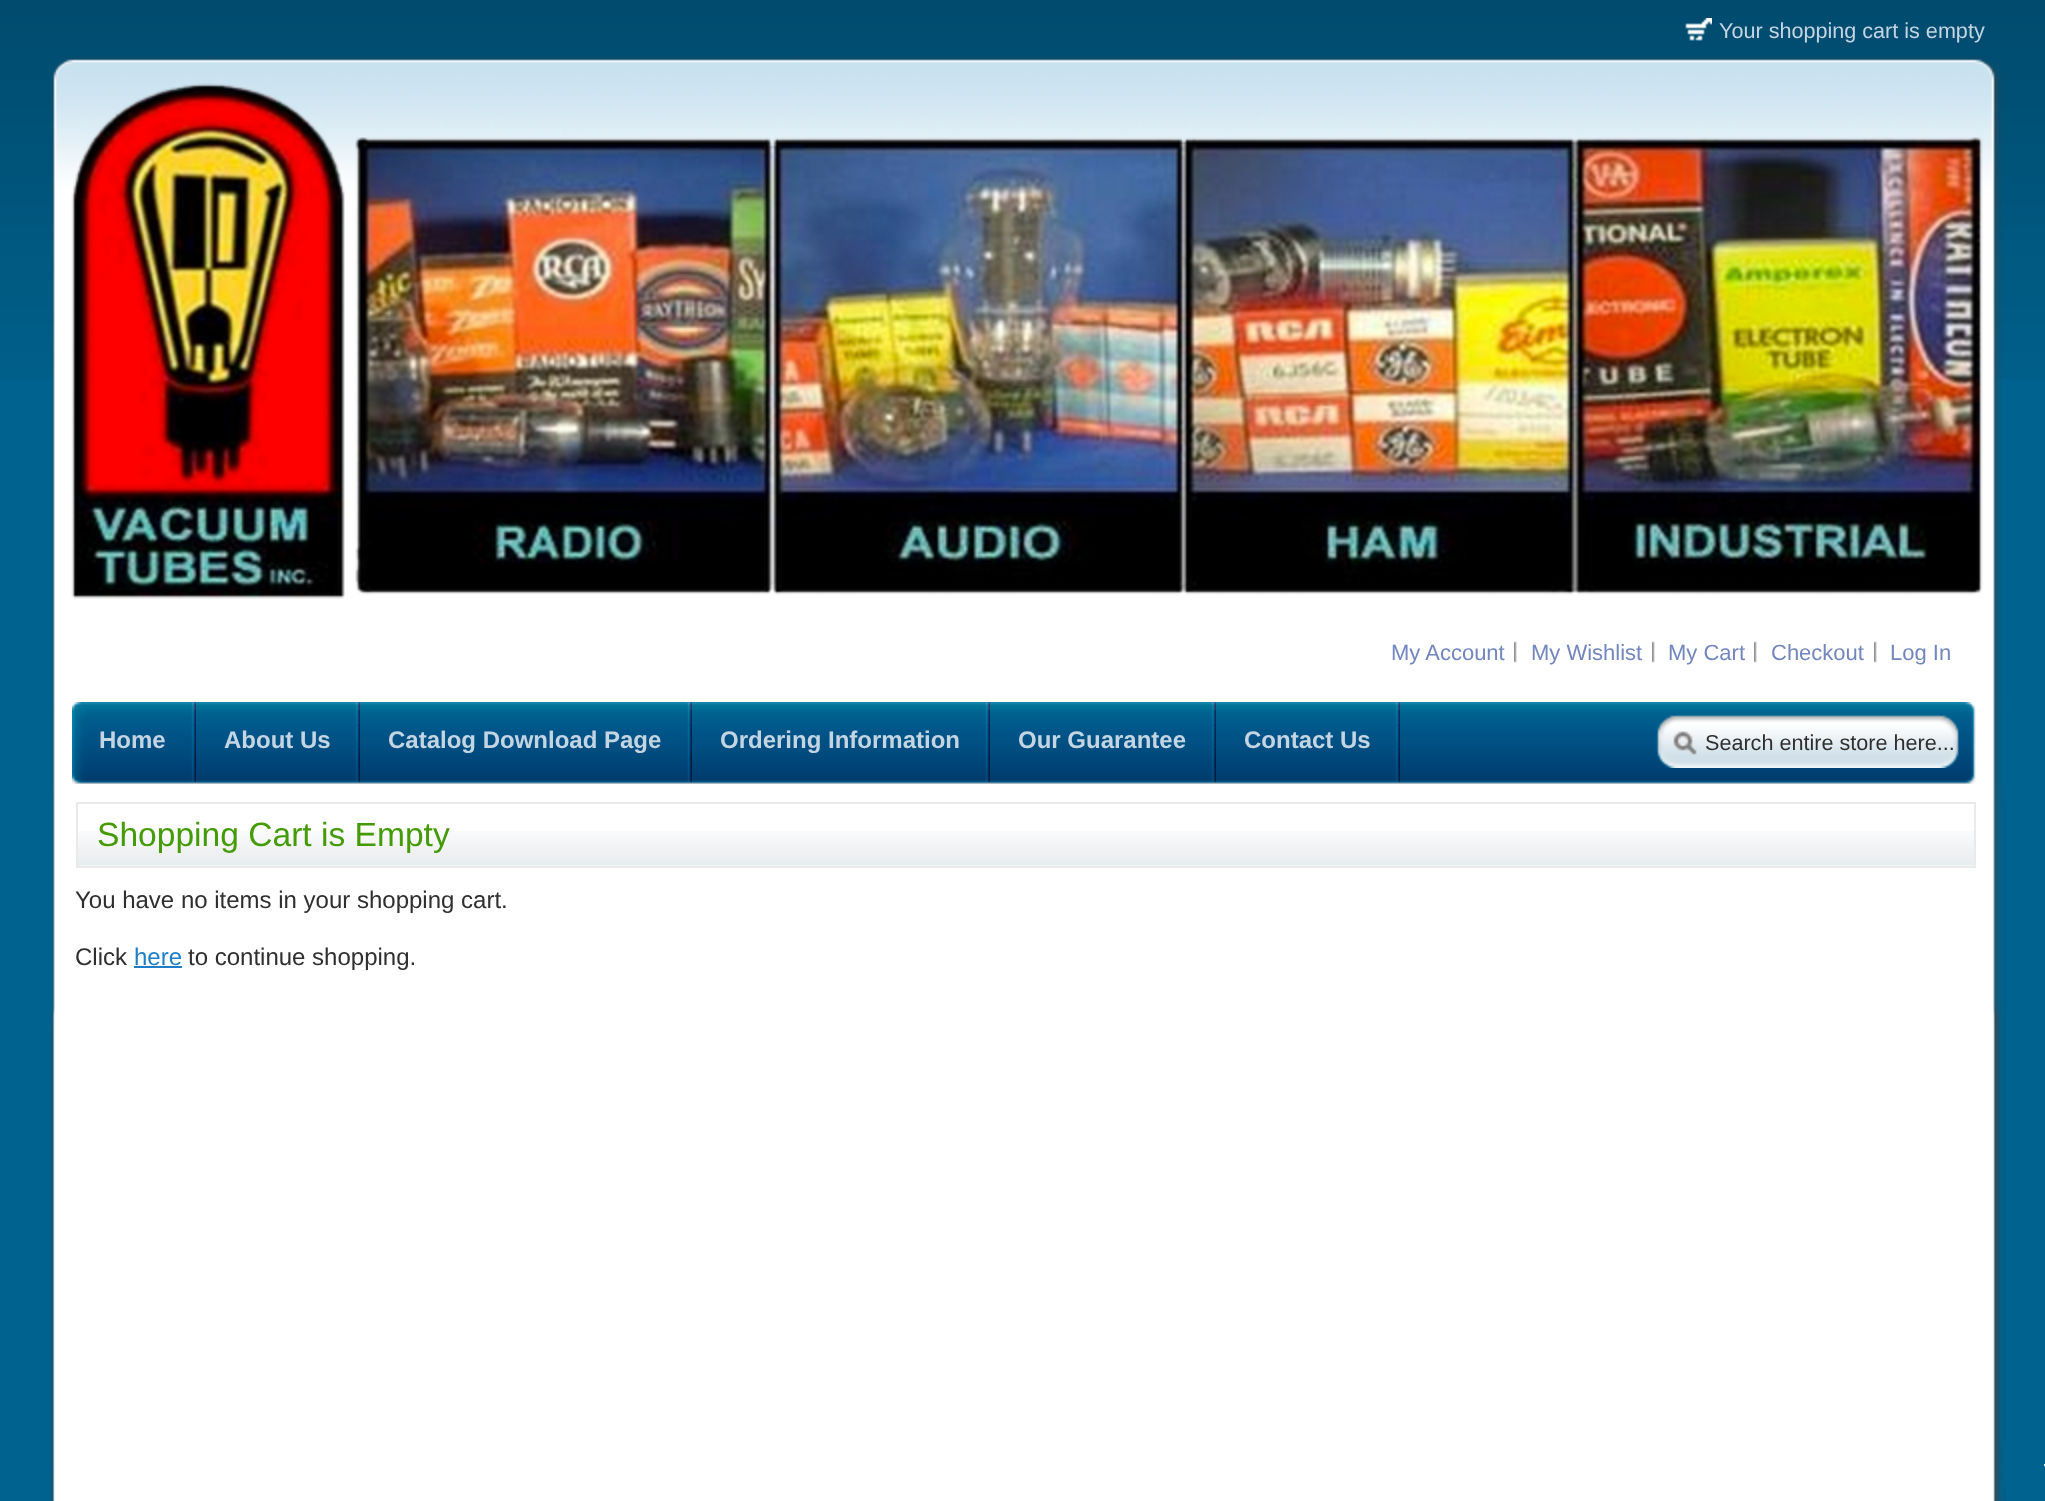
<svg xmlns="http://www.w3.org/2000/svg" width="2045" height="1501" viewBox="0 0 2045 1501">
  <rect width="100%" height="100%" fill="rgb(0,98,142)"/>
  <image x="0" y="0" width="2045" height="379" href="pic1.png"/>
  <image x="50" y="702" width="1952" height="82" href="pic2.png"/>
  <image x="72" y="702" width="1904" height="82" href="pic3.png"/>
  <image x="191" y="702" width="5" height="80" href="pic4.png"/>
  <text x="99" y="748" font-family="Liberation Sans" font-size="24" font-weight="bold" fill="rgb(195,213,227)">Home</text>
  <image x="355" y="702" width="5" height="80" href="pic4.png"/>
  <text x="224" y="748" font-family="Liberation Sans" font-size="24" font-weight="bold" fill="rgb(195,213,227)">About Us</text>
  <image x="687" y="702" width="5" height="80" href="pic5.png"/>
  <text x="388" y="748" font-family="Liberation Sans" font-size="24" font-weight="bold" fill="rgb(195,213,227)">Catalog Download Page</text>
  <image x="985" y="702" width="5" height="80" href="pic5.png"/>
  <text x="720" y="748" font-family="Liberation Sans" font-size="24" font-weight="bold" fill="rgb(195,213,227)">Ordering Information</text>
  <image x="1211" y="702" width="5" height="80" href="pic4.png"/>
  <text x="1018" y="748" font-family="Liberation Sans" font-size="24" font-weight="bold" fill="rgb(195,213,227)">Our Guarantee</text>
  <image x="1395" y="702" width="5" height="80" href="pic4.png"/>
  <text x="1244" y="748" font-family="Liberation Sans" font-size="24" font-weight="bold" fill="rgb(195,213,227)">Contact Us</text>
  <image x="50" y="56" width="1952" height="646" href="pic6.png"/>
  <image x="1685" y="18" width="27" height="23" href="pic7.png"/>
  <text x="1719" y="38" font-family="Liberation Sans" font-size="21.6" fill="rgb(195,213,227)">Your shopping cart is empty</text>
  <image x="71" y="83" width="1912" height="516" href="pic8.png"/>
  <text x="1391" y="660" font-family="Liberation Sans" font-size="22" fill="rgb(115,134,190)">My Account</text>
  <image x="1514" y="641" width="3" height="22" href="pic9.png"/>
  <text x="1531" y="660" font-family="Liberation Sans" font-size="22" fill="rgb(115,134,190)">My Wishlist</text>
  <image x="1652" y="641" width="3" height="22" href="pic9.png"/>
  <text x="1668" y="660" font-family="Liberation Sans" font-size="22" fill="rgb(115,134,190)">My Cart</text>
  <image x="1754" y="641" width="3" height="22" href="pic9.png"/>
  <text x="1771" y="660" font-family="Liberation Sans" font-size="22" fill="rgb(115,134,190)">Checkout</text>
  <image x="1874" y="641" width="3" height="22" href="pic9.png"/>
  <text x="1890" y="660" font-family="Liberation Sans" font-size="22" fill="rgb(115,134,190)">Log In</text>
  <image x="1656" y="714" width="303" height="54" href="pic10.png"/>
  <image x="1673" y="731" width="24" height="24" href="pic11.png"/>
  <text x="1705" y="750" font-family="Liberation Sans" font-size="21.6" fill="rgb(47,47,47)">Search entire store here...</text>
  <image x="50" y="999" width="1952" height="502" href="pic12.png"/>
  <image x="50" y="784" width="1956" height="717" href="pic13.png"/>
  <image x="78" y="831" width="1896" height="35" href="pic14.png"/>
  <rect x="77" y="803" width="1898" height="64" fill="none" stroke="rgb(234,234,234)" stroke-width="2"/>
  <text x="97" y="846" font-family="Liberation Sans" font-size="33.6" fill="rgb(69,155,6)">Shopping Cart is Empty</text>
  <g font-family="Liberation Sans" font-size="24" fill="rgb(47,47,47)">
    <text x="75" y="908">You have no items in your shopping cart.</text>
    <text x="75" y="965">Click</text>
  </g>
  <text x="134" y="965" font-family="Liberation Sans" font-size="24" fill="rgb(30,126,200)">here</text>
  <rect x="134" y="966" width="48" height="2" fill="rgb(30,126,200)"/>
  <text x="188" y="965" font-family="Liberation Sans" font-size="24" fill="rgb(47,47,47)">to continue shopping.</text>
  <image x="2044" y="1464" width="1" height="3" href="pic15.png"/>
</svg>
